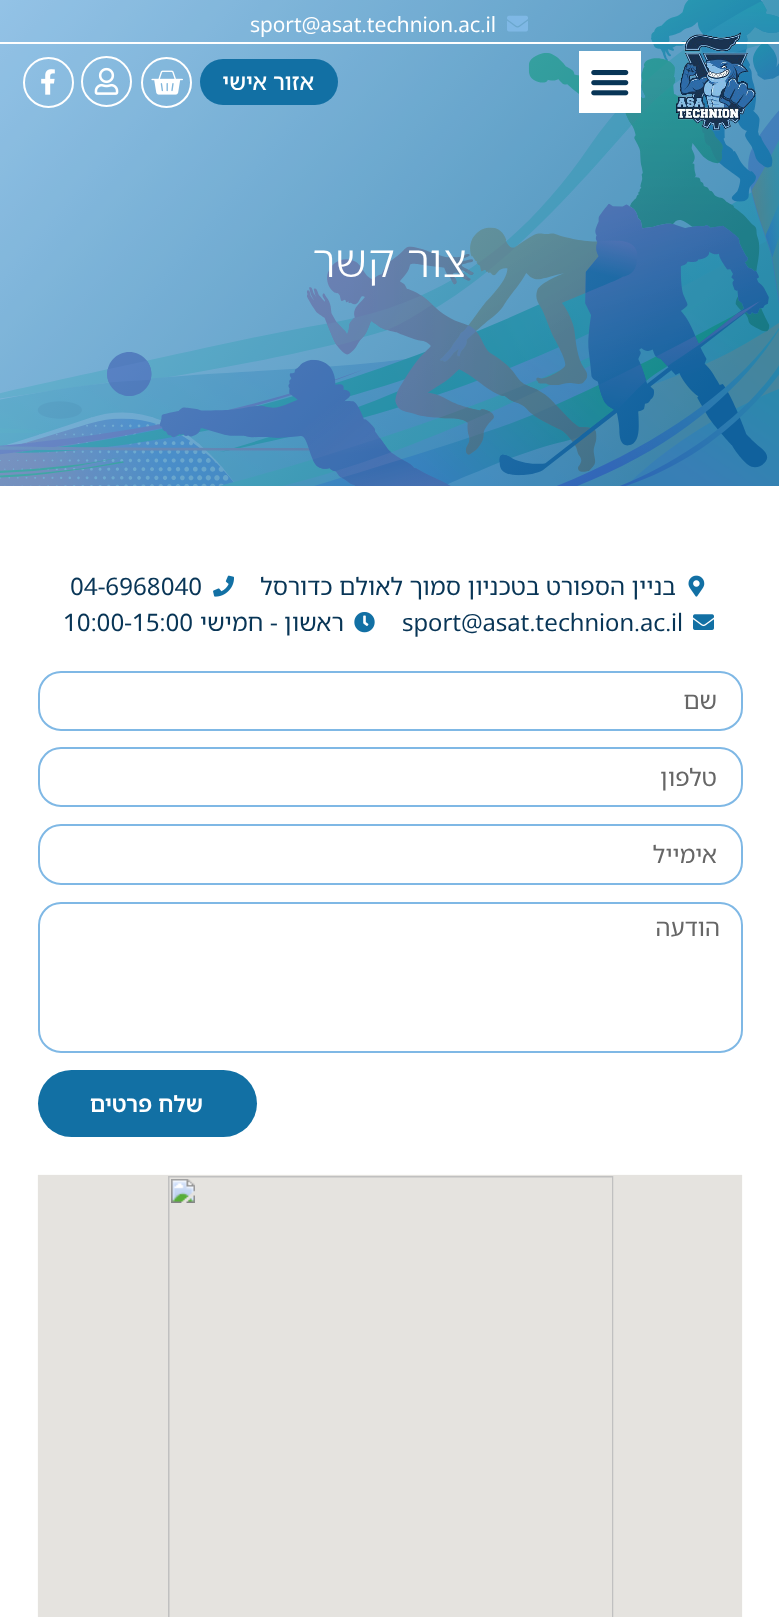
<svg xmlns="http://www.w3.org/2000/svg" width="779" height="1617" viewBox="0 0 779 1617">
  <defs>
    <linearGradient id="g1" gradientUnits="userSpaceOnUse" x1="12" y1="-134" x2="768" y2="500"><stop offset="0" stop-color="rgb(127,184,229)"/><stop offset="0.89" stop-color="rgb(18,112,164)"/></linearGradient>
  </defs>
  <rect width="100%" height="100%" fill="rgb(255,255,255)"/>
  <rect x="0" y="0" width="779" height="486" fill="url(#g1)"/>
  <image x="0" y="0" width="779" height="486" href="pic7.png"/>
  <rect x="0" y="42" width="779" height="2" fill="rgb(255,255,255)"/>
  <image x="507" y="15" width="21" height="17" href="pic1.png"/>
  <text x="250" y="32" font-family="Noto Sans Hebrew" font-size="21" fill="rgb(255,255,255)">sport@asat.technion.ac.il</text>
  <image x="676" y="32" width="80" height="99" href="pic2.png"/>
  <rect x="579" y="51" width="62" height="62" fill="rgb(255,255,255)"/>
  <image x="591" y="70" width="38" height="26" href="pic3.png"/>
  <rect x="200" y="59" width="138" height="46" rx="23" fill="rgb(18,112,164)"/>
  <text x="314" y="90" font-family="Noto Sans Hebrew" font-size="22.5" font-weight="500" direction="rtl" fill="rgb(255,255,255)">אזור אישי</text>
  <circle cx="166.5" cy="82.5" r="24.5" fill="none" stroke="rgb(255,255,255)" stroke-width="2"/>
  <image x="151" y="70" width="32" height="25" href="pic4.png"/>
  <circle cx="106.5" cy="81.5" r="24.5" fill="none" stroke="rgb(255,255,255)" stroke-width="2"/>
  <image x="94" y="67" width="25" height="28" href="pic5.png"/>
  <circle cx="48.5" cy="82.5" r="24.5" fill="none" stroke="rgb(255,255,255)" stroke-width="2"/>
  <image x="41" y="69" width="14" height="26" href="pic6.png"/>
  <text x="467" y="277" font-family="Noto Sans Hebrew" font-size="45" font-weight="300" direction="rtl" fill="rgb(255,255,255)">צור קשר</text>
  <image x="688" y="575" width="17" height="22" href="pic8.png"/>
  <text x="676" y="595" font-family="Noto Sans Hebrew" font-size="24" direction="rtl" fill="rgb(8,53,86)">בניין הספורט בטכניון סמוך לאולם כדורסל</text>
  <image x="213" y="575" width="21" height="22" href="pic9.png"/>
  <text x="70" y="595" font-family="Noto Sans Hebrew" font-size="24" fill="rgb(8,53,86)">04-6968040</text>
  <image x="693" y="614" width="21" height="16" href="pic10.png"/>
  <text x="402" y="631" font-family="Noto Sans Hebrew" font-size="24" fill="rgb(8,53,86)">sport@asat.technion.ac.il</text>
  <image x="354" y="612" width="21" height="21" href="pic11.png"/>
  <text x="344" y="631" font-family="Noto Sans Hebrew" font-size="24" direction="rtl" fill="rgb(8,53,86)">ראשון - חמישי</text>
  <text x="63" y="631" font-family="Noto Sans Hebrew" font-size="24" fill="rgb(8,53,86)">10:00-15:00</text>
  <rect x="39" y="672" width="703" height="58" rx="22" fill="none" stroke="rgb(127,184,229)" stroke-width="2"/>
  <text x="717" y="709" font-family="Noto Sans Hebrew" font-size="24" direction="rtl" fill="rgb(102,102,102)">שם</text>
  <rect x="39" y="748" width="703" height="58" rx="22" fill="none" stroke="rgb(127,184,229)" stroke-width="2"/>
  <text x="717" y="786" font-family="Noto Sans Hebrew" font-size="24" direction="rtl" fill="rgb(102,102,102)">טלפון</text>
  <rect x="39" y="825" width="703" height="59" rx="22" fill="none" stroke="rgb(127,184,229)" stroke-width="2"/>
  <text x="717" y="863" font-family="Noto Sans Hebrew" font-size="24" direction="rtl" fill="rgb(102,102,102)">אימייל</text>
  <rect x="39" y="903" width="703" height="149" rx="22" fill="none" stroke="rgb(127,184,229)" stroke-width="2"/>
  <text x="720" y="936" font-family="Noto Sans Hebrew" font-size="24" direction="rtl" fill="rgb(102,102,102)">הודעה</text>
  <rect x="38" y="1070" width="219" height="67" rx="33.5" fill="rgb(18,112,164)"/>
  <text x="203" y="1112" font-family="Noto Sans Hebrew" font-size="22.5" font-weight="600" direction="rtl" fill="rgb(255,255,255)">שלח פרטים</text>
  <image x="37" y="1174" width="706" height="443" href="pic12.png"/>
</svg>
